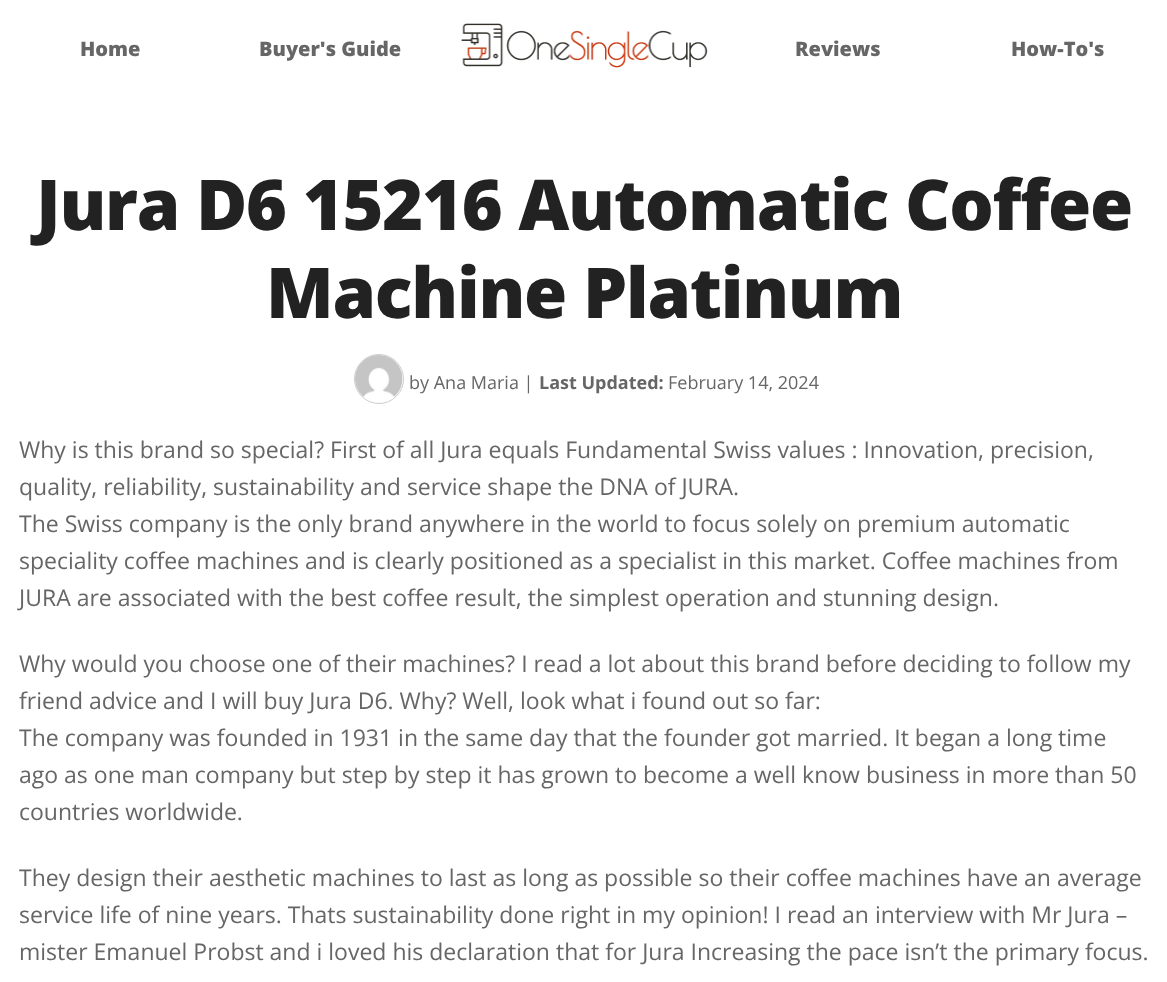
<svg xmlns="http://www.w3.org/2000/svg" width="1167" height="982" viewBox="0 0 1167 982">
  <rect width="100%" height="100%" fill="rgb(255,255,255)"/>
  <g font-family="Open Sans" font-size="20" font-weight="800" fill="rgb(102,102,102)">
    <text x="80" y="56">Home</text>
    <text x="259" y="56">Buyer's Guide</text>
  </g>
  <image x="460" y="23" width="248" height="45" href="pic1.png"/>
  <g font-family="Open Sans" font-size="20" font-weight="800" fill="rgb(102,102,102)">
    <text x="795" y="56">Reviews</text>
    <text x="1011" y="56">How-To's</text>
  </g>
  <g font-family="Open Sans" font-size="70" font-weight="800" letter-spacing="-1.25" fill="rgb(34,34,34)">
    <text x="36" y="230">Jura D6 15216 Automatic Coffee</text>
    <text x="266" y="318">Machine Platinum</text>
  </g>
  <circle cx="379" cy="379" r="24.5" fill="none" stroke="rgb(204,204,204)"/>
  <image x="355" y="355" width="48" height="42" href="pic2.png"/>
  <text x="409" y="389" font-family="Open Sans" font-size="18" fill="rgb(102,102,102)">by Ana Maria |</text>
  <text x="539" y="389" font-family="Open Sans" font-size="18" font-weight="bold" fill="rgb(102,102,102)">Last Updated:</text>
  <text x="668" y="389" font-family="Open Sans" font-size="18" fill="rgb(102,102,102)">February 14, 2024</text>
  <g font-family="Open Sans" font-size="23" fill="rgb(102,102,102)">
    <text>
      <tspan x="19" y="458">Why is this brand so special? First of all Jura equals Fundamental Swiss values : Innovation, precision,</tspan>
      <tspan x="19" y="495">quality, reliability, sustainability and service shape the DNA of JURA.</tspan>
      <tspan x="19" y="532">The Swiss company is the only brand anywhere in the world to focus solely on premium automatic</tspan>
      <tspan x="19" y="569">speciality coffee machines and is clearly positioned as a specialist in this market. Coffee machines from</tspan>
      <tspan x="19" y="606">JURA are associated with the best coffee result, the simplest operation and stunning design.</tspan>
    </text>
    <text>
      <tspan x="19" y="672">Why would you choose one of their machines? I read a lot about this brand before deciding to follow my</tspan>
      <tspan x="19" y="709">friend advice and I will buy Jura D6. Why? Well, look what i found out so far:</tspan>
      <tspan x="19" y="746">The company was founded in 1931 in the same day that the founder got married. It began a long time</tspan>
      <tspan x="19" y="783">ago as one man company but step by step it has grown to become a well know business in more than 50</tspan>
      <tspan x="19" y="820">countries worldwide.</tspan>
    </text>
    <text>
      <tspan x="19" y="886">They design their aesthetic machines to last as long as possible so their coffee machines have an average</tspan>
      <tspan x="19" y="923">service life of nine years. Thats sustainability done right in my opinion! I read an interview with Mr Jura –</tspan>
      <tspan x="19" y="960">mister Emanuel Probst and i loved his declaration that for Jura Increasing the pace isn’t the primary focus.</tspan>
    </text>
  </g>
</svg>
